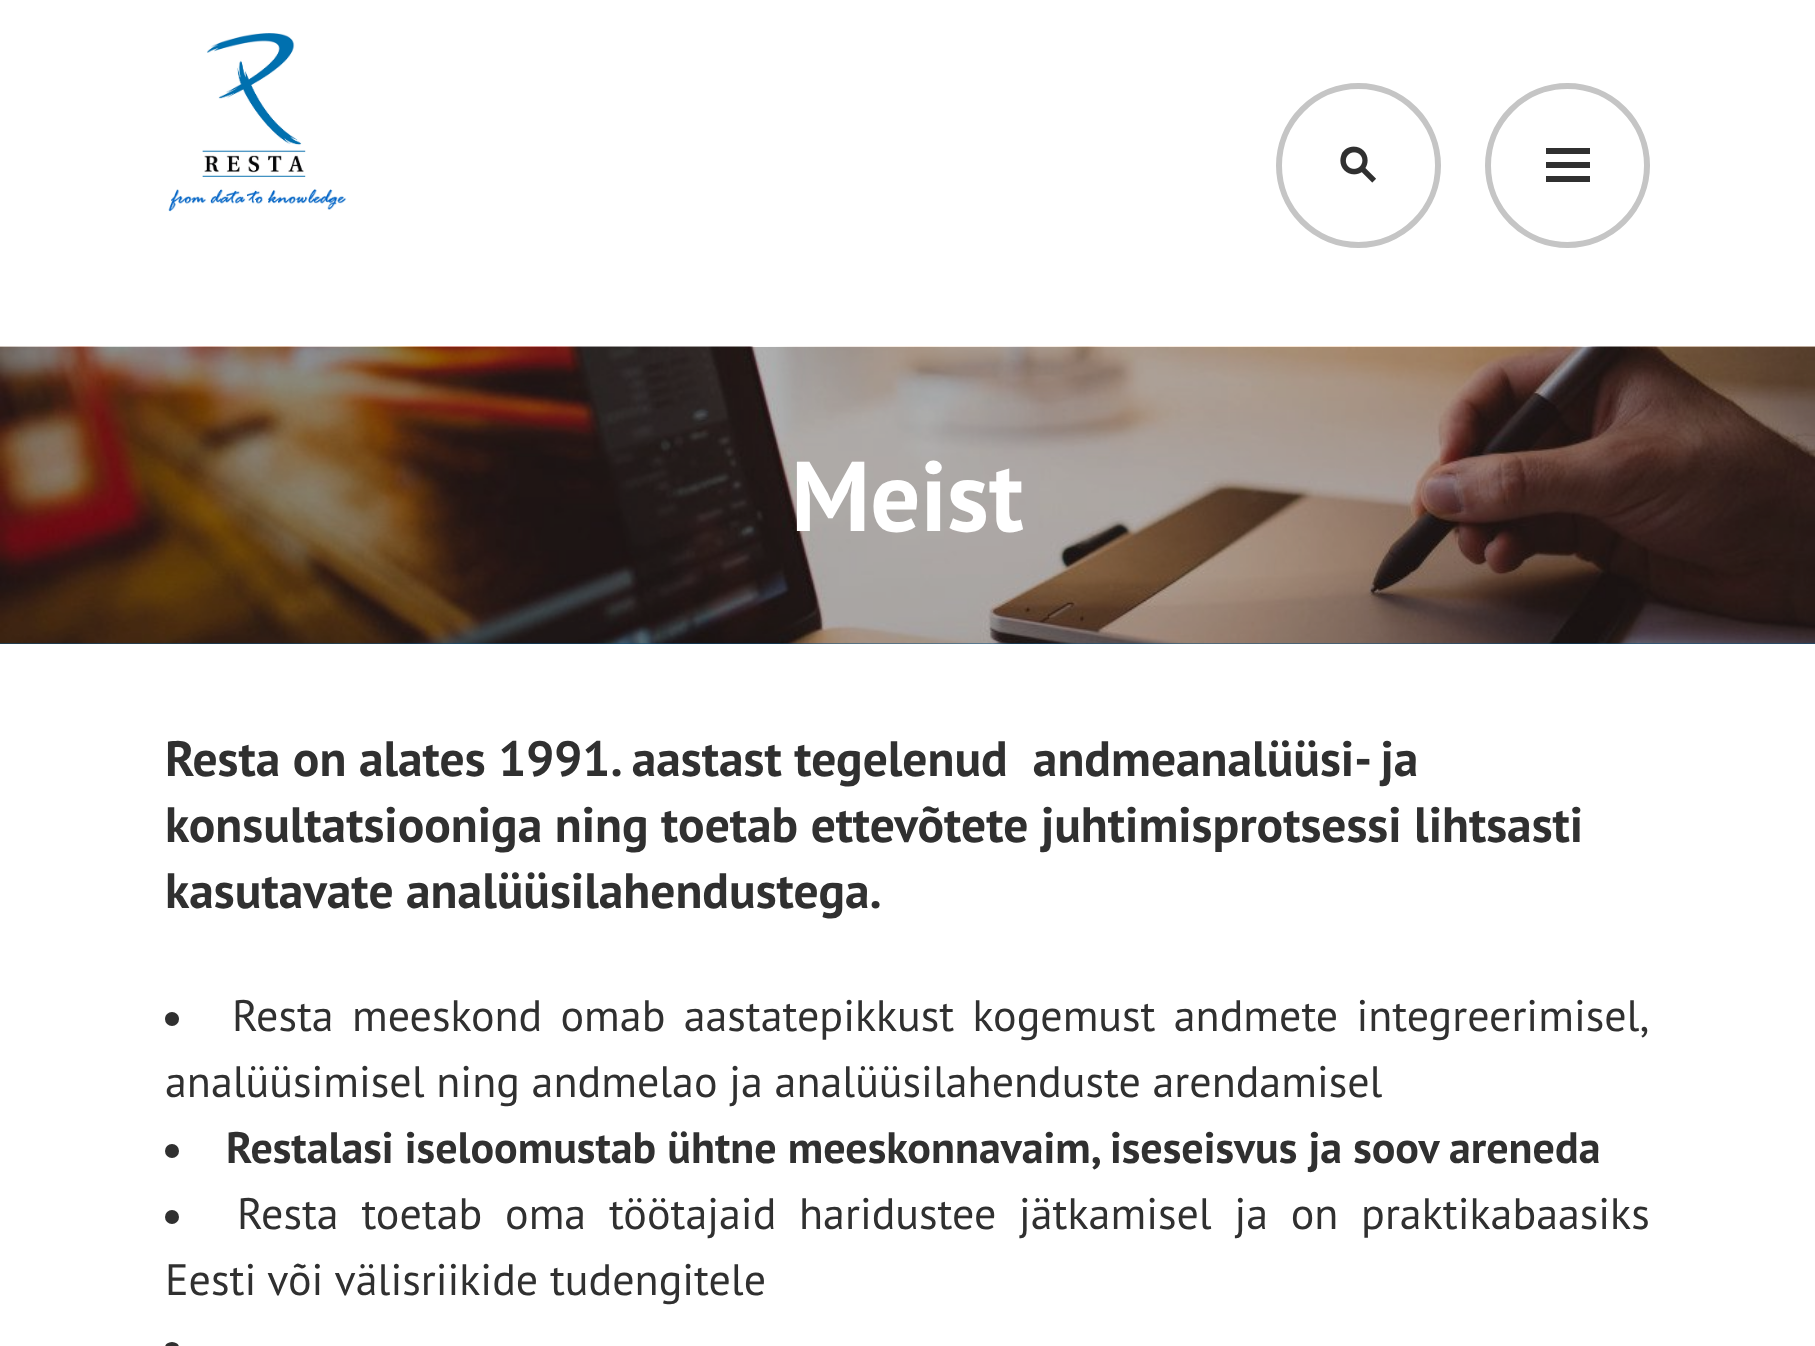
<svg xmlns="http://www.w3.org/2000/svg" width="1815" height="1346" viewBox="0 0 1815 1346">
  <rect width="100%" height="100%" fill="rgb(255,255,255)"/>
  <image x="168" y="33" width="179" height="179" href="pic1.png"/>
  <circle cx="1358.5" cy="165.5" r="79.5" fill="none" stroke="rgb(197,197,197)" stroke-width="6"/>
  <image x="1340" y="146" width="36" height="37" href="pic2.png"/>
  <circle cx="1567.5" cy="165.5" r="79.5" fill="none" stroke="rgb(197,197,197)" stroke-width="6"/>
  <path d="M1546 148H1590V154H1546ZM1546 162H1590V168H1546ZM1546 176H1590V182H1546Z" fill="rgb(48,48,48)"/>
  <rect x="0" y="643" width="1815" height="1" fill="rgb(13,85,133)"/>
  <image x="0" y="346" width="1815" height="298" href="pic3.png"/>
  <text x="791" y="531" font-family="PT Sans" font-size="99" font-weight="bold" fill="rgb(255,255,255)">Meist</text>
  <g font-family="PT Sans" font-size="49.5" font-weight="bold" fill="rgb(48,48,48)">
    <text xml:space="preserve"><tspan x="165" y="776">Resta on alates 1991. aastast tegelenud  andmeanalüüsi- ja</tspan><tspan x="165" y="842">konsultatsiooniga ning toetab ettevõtete juhtimisprotsessi lihtsasti</tspan><tspan x="165" y="908">kasutavate analüüsilahendustega.</tspan></text>
  </g>
  <circle cx="172" cy="1019" r="7" fill="rgb(48,48,48)"/>
  <g font-family="PT Sans" font-size="44" fill="rgb(48,48,48)">
    <text x="232" y="1031" word-spacing="6.5">Resta meeskond omab aastatepikkust kogemust andmete integreerimisel,</text>
    <text x="165" y="1097">analüüsimisel ning andmelao ja analüüsilahenduste arendamisel</text>
  </g>
  <circle cx="172" cy="1151" r="7" fill="rgb(48,48,48)"/>
  <text x="226" y="1163" font-family="PT Sans" font-size="44" font-weight="bold" fill="rgb(48,48,48)">Restalasi iseloomustab ühtne meeskonnavaim, iseseisvus ja soov areneda</text>
  <circle cx="172" cy="1217" r="7" fill="rgb(48,48,48)"/>
  <g font-family="PT Sans" font-size="44" fill="rgb(48,48,48)">
    <text x="237" y="1229" word-spacing="11">Resta toetab oma töötajaid haridustee jätkamisel ja on praktikabaasiks</text>
    <text x="165" y="1295">Eesti või välisriikide tudengitele</text>
  </g>
  <rect x="165" y="1342" width="14" height="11" rx="7" fill="rgb(48,48,48)"/>
</svg>
